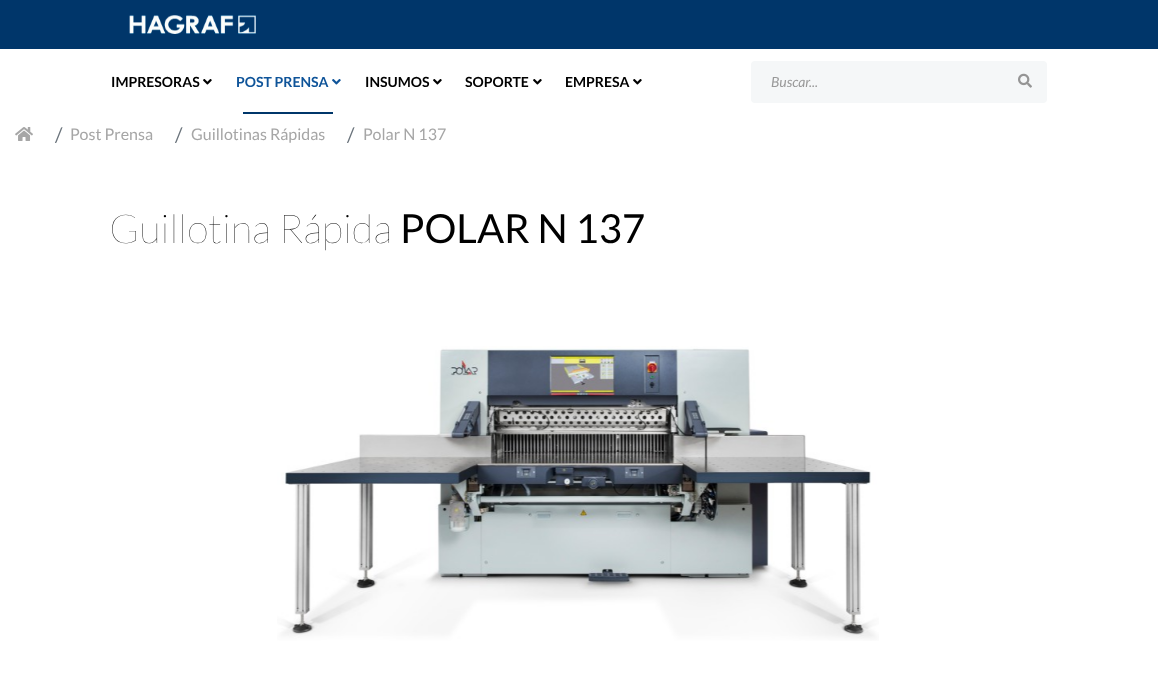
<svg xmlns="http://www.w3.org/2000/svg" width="1158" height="700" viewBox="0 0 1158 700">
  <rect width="100%" height="100%" fill="rgb(0,54,106)"/>
  <image x="129" y="15" width="127" height="19" href="pic1.png"/>
  <rect x="0" y="49" width="1158" height="651" fill="rgb(255,255,255)"/>
  <text x="111" y="87" font-family="Lato" font-size="14" font-weight="bold" fill="rgb(0,0,0)">IMPRESORAS</text>
  <image x="203" y="79" width="9" height="6" href="pic2.png"/>
  <text x="236" y="87" font-family="Lato" font-size="14" font-weight="bold" fill="rgb(15,84,153)">POST PRENSA</text>
  <image x="332" y="79" width="9" height="6" href="pic3.png"/>
  <rect x="243" y="112" width="90" height="2" fill="rgb(0,54,106)"/>
  <text x="365" y="87" font-family="Lato" font-size="14" font-weight="bold" fill="rgb(0,0,0)">INSUMOS</text>
  <image x="433" y="79" width="9" height="6" href="pic2.png"/>
  <text x="465" y="87" font-family="Lato" font-size="14" font-weight="bold" fill="rgb(0,0,0)">SOPORTE</text>
  <image x="533" y="79" width="9" height="6" href="pic2.png"/>
  <text x="565" y="87" font-family="Lato" font-size="14" font-weight="bold" fill="rgb(0,0,0)">EMPRESA</text>
  <image x="633" y="79" width="9" height="6" href="pic2.png"/>
  <rect x="751" y="61" width="296" height="42" rx="4" fill="rgb(245,247,248)"/>
  <text x="771" y="87" font-family="Lato" font-size="14" font-style="italic" fill="rgb(153,153,153)">Buscar...</text>
  <image x="1018" y="73" width="14" height="15" href="pic4.png"/>
  <image x="15" y="127" width="18" height="14" href="pic5.png"/>
  <text x="55" y="142" font-family="Lato" font-size="20" fill="rgb(108,117,125)">/</text>
  <text x="70" y="140" font-family="Lato" font-size="16" fill="rgb(166,166,166)">Post Prensa</text>
  <text x="175" y="142" font-family="Lato" font-size="20" fill="rgb(108,117,125)">/</text>
  <text x="191" y="140" font-family="Lato" font-size="16" fill="rgb(166,166,166)">Guillotinas Rápidas</text>
  <text x="347" y="142" font-family="Lato" font-size="20" fill="rgb(108,117,125)">/</text>
  <text x="363" y="140" font-family="Lato" font-size="16" fill="rgb(166,166,166)">Polar N 137</text>
  <text x="109" y="243" font-family="Lato" font-size="40" font-weight="100" fill="rgb(0,0,0)">Guillotina Rápida</text>
  <text x="400" y="243" font-family="Lato" font-size="40" fill="rgb(0,0,0)">POLAR N 137</text>
  <image x="277" y="346" width="602" height="295" href="pic6.png"/>
</svg>
